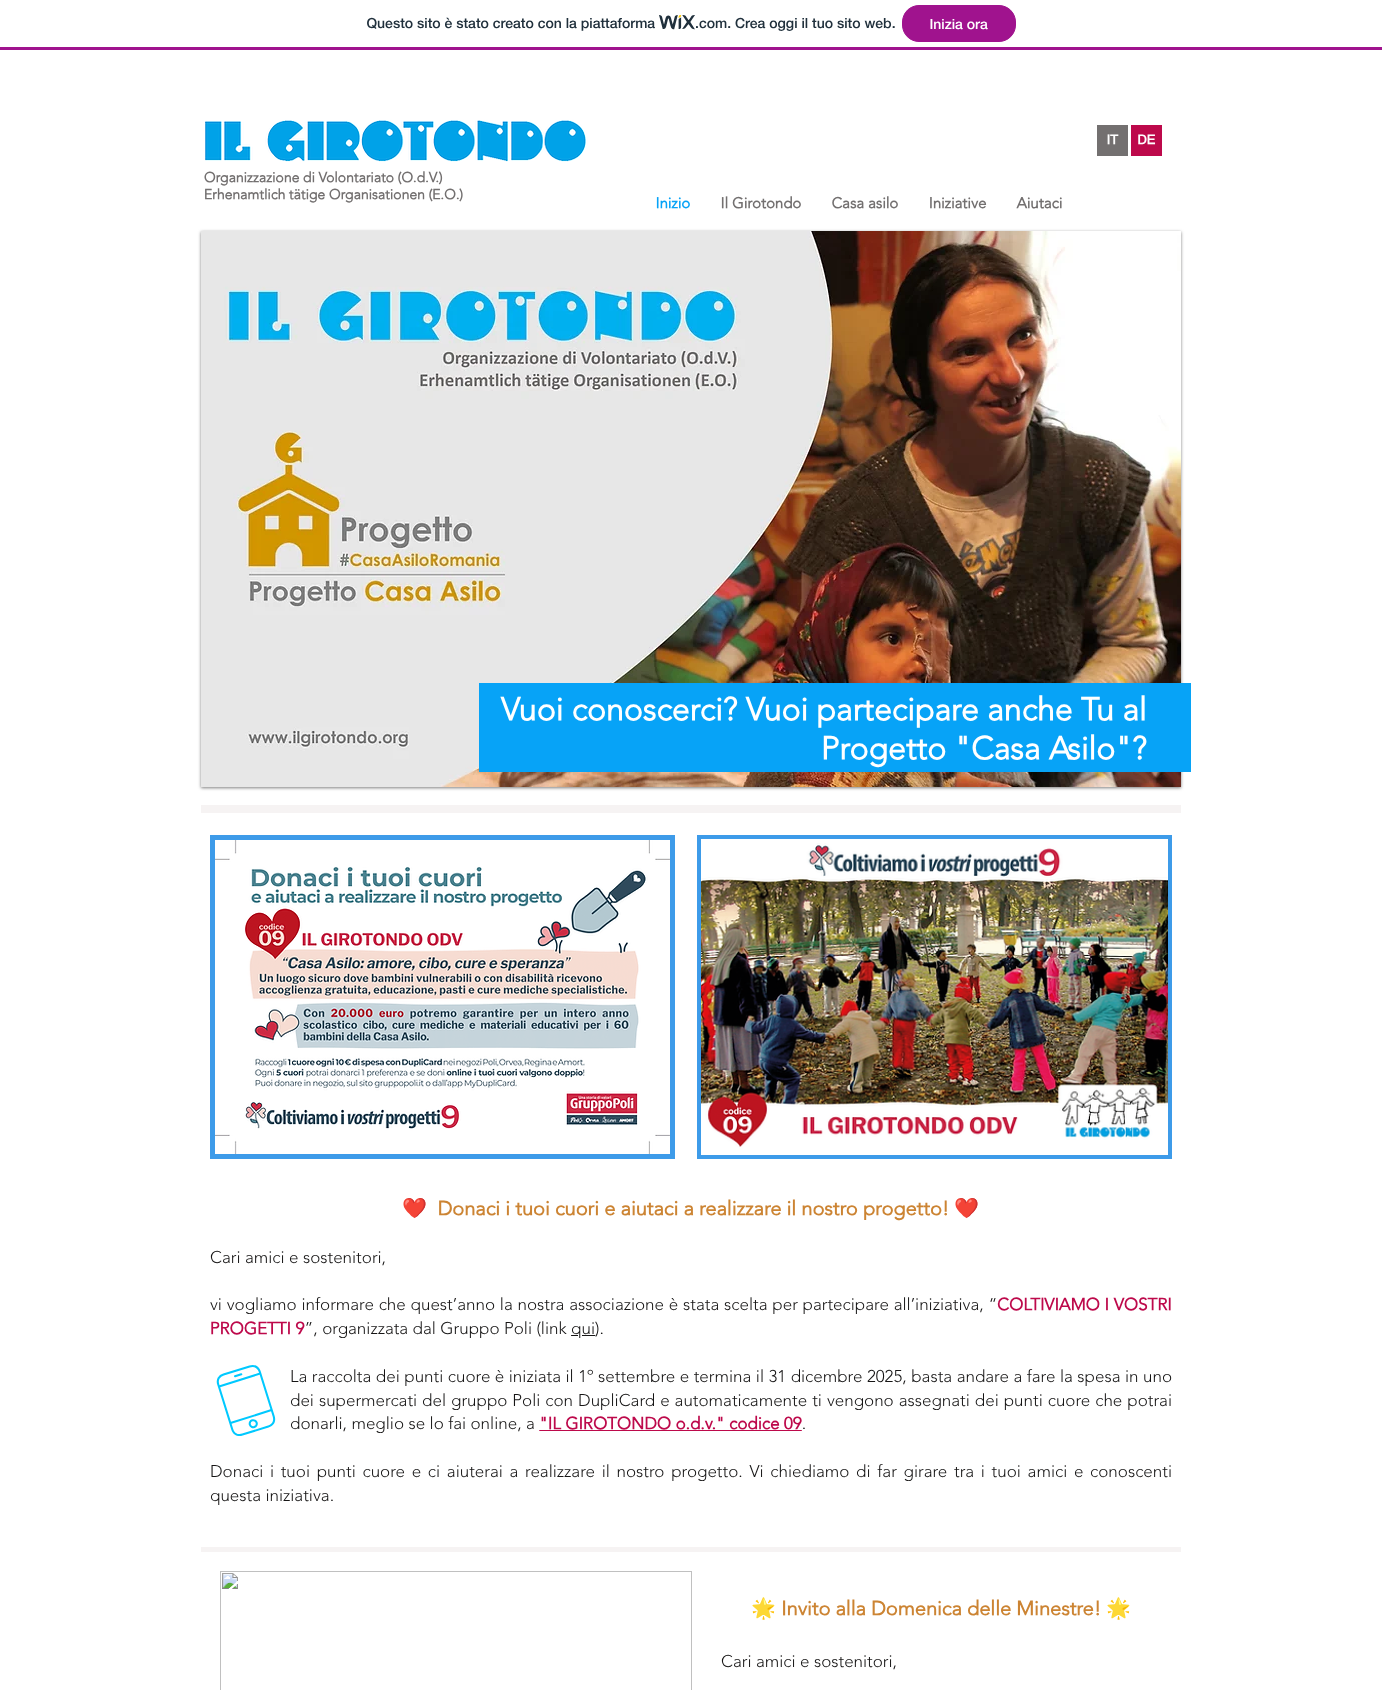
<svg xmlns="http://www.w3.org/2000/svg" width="1382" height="1690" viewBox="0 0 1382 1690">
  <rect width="100%" height="100%" fill="rgb(255,255,255)"/>
  <image x="0" y="5" width="1382" height="1685" href="pic1.png"/>
</svg>
